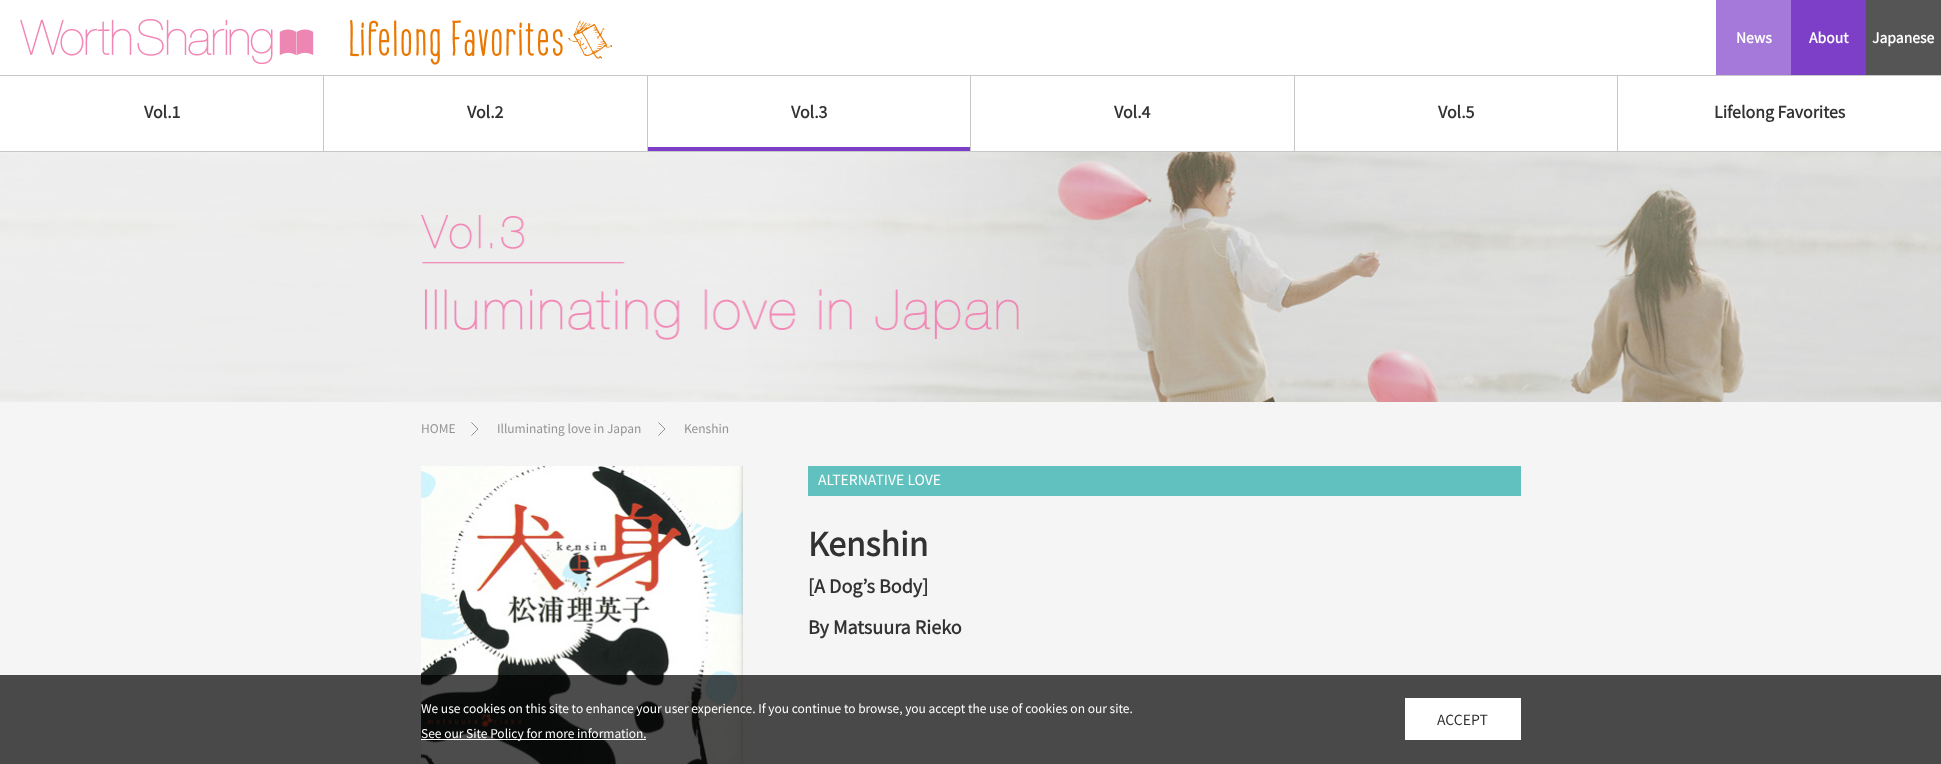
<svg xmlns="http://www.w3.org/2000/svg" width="1941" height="764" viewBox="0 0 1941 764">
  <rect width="100%" height="100%" fill="rgb(255,255,255)"/>
  <image x="20" y="19" width="294" height="45" href="pic1.png"/>
  <image x="350" y="20" width="263" height="45" href="pic2.png"/>
  <rect x="1716" y="0" width="75" height="75" fill="rgb(164,121,217)"/>
  <text x="1736" y="43" font-family="Noto Sans JP" font-size="14" font-weight="bold" fill="rgb(255,255,255)">News</text>
  <rect x="1791" y="0" width="75" height="75" fill="rgb(125,63,200)"/>
  <text x="1809" y="43" font-family="Noto Sans JP" font-size="14" font-weight="bold" fill="rgb(255,255,255)">About</text>
  <rect x="1866" y="0" width="75" height="75" fill="rgb(85,85,85)"/>
  <text x="1872" y="43" font-family="Noto Sans JP" font-size="14" font-weight="bold" fill="rgb(255,255,255)">Japanese</text>
  <rect x="0" y="75" width="1941" height="1" fill="rgb(199,199,199)"/>
  <rect x="0" y="151" width="1941" height="1" fill="rgb(199,199,199)"/>
  <text x="144" y="118" font-family="Noto Sans JP" font-size="16" font-weight="bold" fill="rgb(50,50,50)">Vol.1</text>
  <rect x="323" y="76" width="1" height="75" fill="rgb(199,199,199)"/>
  <text x="467" y="118" font-family="Noto Sans JP" font-size="16" font-weight="bold" fill="rgb(50,50,50)">Vol.2</text>
  <rect x="647" y="76" width="1" height="75" fill="rgb(199,199,199)"/>
  <rect x="648" y="147" width="322" height="4" fill="rgb(125,63,200)"/>
  <text x="791" y="118" font-family="Noto Sans JP" font-size="16" font-weight="bold" fill="rgb(50,50,50)">Vol.3</text>
  <rect x="970" y="76" width="1" height="75" fill="rgb(199,199,199)"/>
  <text x="1114" y="118" font-family="Noto Sans JP" font-size="16" font-weight="bold" fill="rgb(50,50,50)">Vol.4</text>
  <rect x="1294" y="76" width="1" height="75" fill="rgb(199,199,199)"/>
  <text x="1438" y="118" font-family="Noto Sans JP" font-size="16" font-weight="bold" fill="rgb(50,50,50)">Vol.5</text>
  <rect x="1617" y="76" width="1" height="75" fill="rgb(199,199,199)"/>
  <text x="1714" y="118" font-family="Noto Sans JP" font-size="16" font-weight="bold" fill="rgb(50,50,50)">Lifelong Favorites</text>
  <image x="0" y="152" width="1941" height="250" href="pic3.png"/>
  <image x="421" y="215" width="598" height="125" href="pic4.png"/>
  <rect x="0" y="402" width="1941" height="362" fill="rgb(245,245,245)"/>
  <text x="421" y="433" font-family="Noto Sans JP" font-size="12" font-weight="100" fill="rgb(147,147,147)">HOME</text>
  <image x="471" y="422" width="7" height="14" href="pic5.png"/>
  <text x="497" y="433" font-family="Noto Sans JP" font-size="12" font-weight="100" fill="rgb(147,147,147)">Illuminating love in Japan</text>
  <image x="658" y="422" width="7" height="14" href="pic5.png"/>
  <text x="684" y="433" font-family="Noto Sans JP" font-size="12" font-weight="100" fill="rgb(147,147,147)">Kenshin</text>
  <image x="421" y="466" width="322" height="298" href="pic6.png"/>
  <rect x="808" y="466" width="713" height="30" fill="rgb(97,193,190)"/>
  <text x="818" y="485" font-family="Noto Sans JP" font-size="14" font-weight="100" fill="rgb(255,255,255)">ALTERNATIVE LOVE</text>
  <text x="808" y="556" font-family="Noto Sans JP" font-size="32" font-weight="bold" fill="rgb(50,50,50)">Kenshin</text>
  <g font-family="Noto Sans JP" font-size="18" font-weight="bold" fill="rgb(50,50,50)">
    <text x="808" y="593">[A Dog’s Body]</text>
    <text x="808" y="634">By Matsuura Rieko</text>
  </g>
  <rect x="0" y="675" width="1941" height="89" fill="rgba(0,0,0,0.7)"/>
  <text x="421" y="713" font-family="Noto Sans JP" font-size="12" font-weight="100" fill="rgb(255,255,255)">We use cookies on this site to enhance your user experience. If you continue to browse, you accept the use of cookies on our site.</text>
  <rect x="421" y="739" width="225" height="1" fill="rgb(255,255,255)"/>
  <text x="421" y="738" font-family="Noto Sans JP" font-size="12" font-weight="100" fill="rgb(255,255,255)">See our Site Policy for more information.</text>
  <rect x="1405" y="698" width="116" height="42" fill="rgb(255,255,255)"/>
  <text x="1437" y="725" font-family="Noto Sans JP" font-size="14" font-weight="100" fill="rgb(50,50,50)">ACCEPT</text>
</svg>
